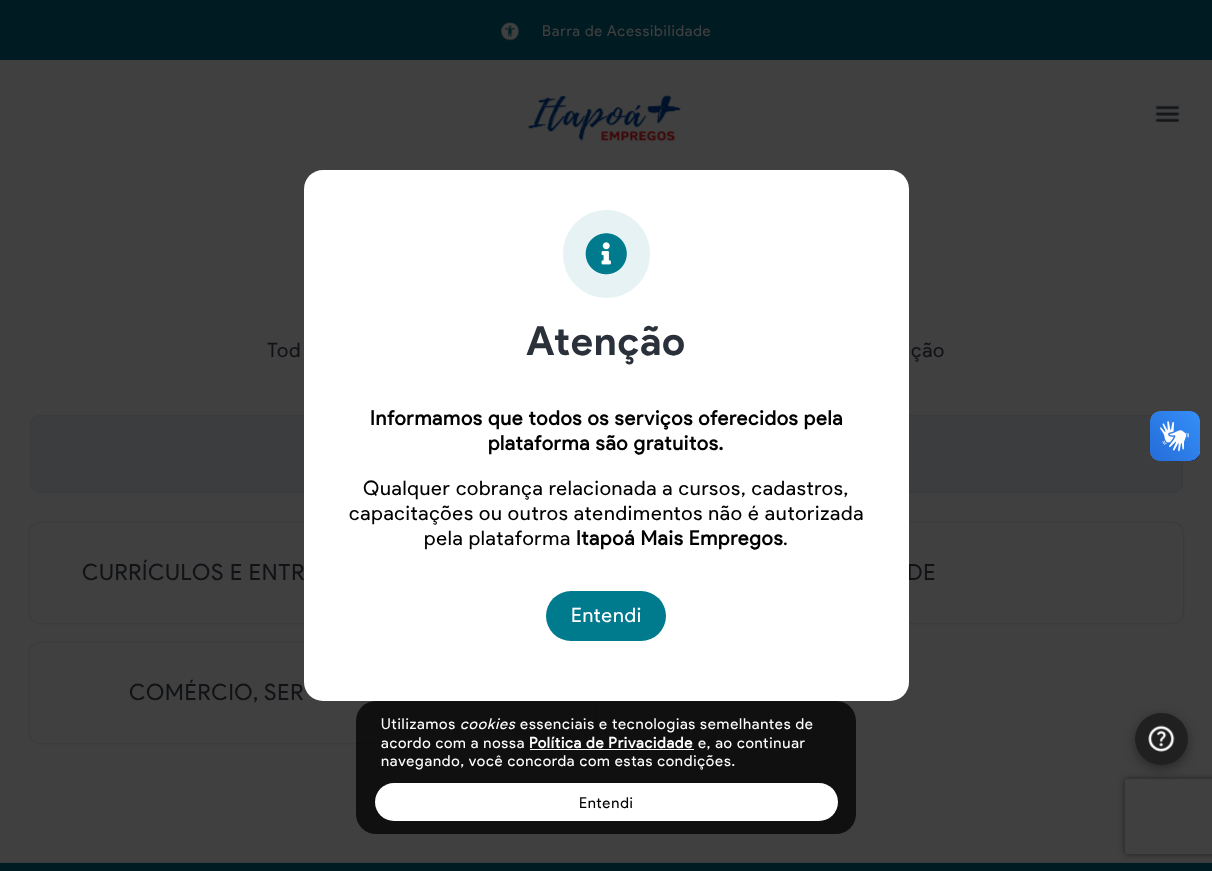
<svg xmlns="http://www.w3.org/2000/svg" width="1212" height="871" viewBox="0 0 1212 871">
  <defs>
    <clipPath id="clip1"><path d="M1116 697H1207V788H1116ZM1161 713H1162C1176.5 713 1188 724.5 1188 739C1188 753.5 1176.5 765 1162 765H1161C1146.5 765 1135 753.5 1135 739C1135 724.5 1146.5 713 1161 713Z" clip-rule="evenodd"/></clipPath>
    <clipPath id="clip2"><path d="M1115 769H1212V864H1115ZM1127.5 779H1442.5C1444 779 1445 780 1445 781.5V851.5C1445 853 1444 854 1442.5 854H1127.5C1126 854 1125 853 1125 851.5V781.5C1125 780 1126 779 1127.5 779Z" clip-rule="evenodd"/></clipPath>
  </defs>
  <rect width="100%" height="100%" fill="rgb(64,64,64)"/>
  <rect x="0" y="0" width="1212" height="60" fill="rgb(0,27,33)"/>
  <image x="501" y="22" width="19" height="19" href="pic1.png"/>
  <text x="542" y="36" font-family="Product Sans" font-size="15" letter-spacing="0.8" fill="rgb(64,64,64)">Barra de Acessibilidade</text>
  <image x="528" y="95" width="153" height="47" href="pic2.png"/>
  <image x="1155" y="105" width="25" height="17" href="pic3.png"/>
  <rect x="30.5" y="415.5" width="1152" height="77" rx="9.5" fill="rgb(60,61,62)" stroke="rgb(56,58,60)"/>
  <rect x="30" y="523" width="566" height="100" rx="10" fill="rgba(5,11,20,0.25)" filter="blur(1px)"/>
  <rect x="30" y="523" width="566" height="100" rx="10" fill="rgb(64,64,64)"/>
  <text x="82" y="580" font-family="Product Sans" font-size="22.5" letter-spacing="0.8" fill="rgb(16,18,21)">CURRÍCULOS E ENTR</text>
  <rect x="616" y="523" width="567" height="100" rx="10" fill="rgba(5,11,20,0.25)" filter="blur(1px)"/>
  <rect x="616" y="523" width="567" height="100" rx="10" fill="rgb(64,64,64)"/>
  <text x="907" y="580" font-family="Product Sans" font-size="22.5" letter-spacing="0.8" fill="rgb(16,18,21)">DE</text>
  <rect x="30" y="643" width="566" height="100" rx="10" fill="rgba(5,11,20,0.25)" filter="blur(1px)"/>
  <rect x="30" y="643" width="566" height="100" rx="10" fill="rgb(64,64,64)"/>
  <rect x="304" y="170" width="605" height="531" rx="19" fill="rgb(255,255,255)"/>
  <rect x="574.5" y="221.5" width="64" height="65" rx="32" fill="none" stroke="rgb(230,242,244)" stroke-width="23"/>
  <image x="585" y="233" width="42" height="42" href="pic4.png"/>
  <text x="526" y="355" font-family="Product Sans" font-size="40" font-weight="bold" letter-spacing="0.8" fill="rgb(43,49,59)">Atenção</text>
  <g font-family="'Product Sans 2'" font-size="20" font-weight="bold" letter-spacing="0.8" fill="rgb(0,0,0)">
    <text x="370" y="425">Informamos que todos os serviços oferecidos pela</text>
    <text x="488" y="450">plataforma são gratuitos.</text>
  </g>
  <g font-family="Product Sans" font-size="20" letter-spacing="0.8" fill="rgb(0,0,0)">
    <text x="363" y="495">Qualquer cobrança relacionada a cursos, cadastros,</text>
    <text x="349" y="520">capacitações ou outros atendimentos não é autorizada</text>
    <text x="424" y="545">pela plataforma</text>
  </g>
  <text x="576" y="545" font-family="'Product Sans 2'" font-size="20" font-weight="bold" letter-spacing="0.8" fill="rgb(0,0,0)">Itapoá Mais Empregos</text>
  <text x="783" y="545" font-family="Product Sans" font-size="20" letter-spacing="0.8" fill="rgb(0,0,0)">.</text>
  <rect x="546" y="591" width="120" height="50" rx="25" fill="rgb(0,123,142)"/>
  <text x="571" y="622" font-family="Product Sans" font-size="20" letter-spacing="0.8" fill="rgb(255,255,255)">Entendi</text>
  <g font-family="Product Sans" font-size="20" letter-spacing="0.8" fill="rgb(16,18,21)">
    <text x="267" y="357">Tod</text>
    <text x="911" y="357">ção</text>
  </g>
  <text x="129" y="700" font-family="Product Sans" font-size="22.5" letter-spacing="0.8" fill="rgb(16,18,21)">COMÉRCIO, SER</text>
  <g clip-path="url(#clip1)">
    <rect x="1135" y="716" width="53" height="53" rx="26.5" fill="rgba(0,0,0,0.37)" filter="blur(6px)"/>
  </g>
  <rect x="1135" y="713" width="53" height="52" rx="26" fill="rgba(0,0,0,0.5)"/>
  <image x="1148" y="725" width="27" height="27" href="pic5.png"/>
  <rect x="0" y="863" width="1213" height="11" fill="rgba(5,11,20,0.25)" filter="blur(1px)"/>
  <rect x="0" y="863" width="1212" height="8" fill="rgb(0,27,33)"/>
  <image x="1150" y="411" width="50" height="51" href="pic6.png"/>
  <image x="1150" y="411" width="50" height="50" href="pic7.png"/>
  <rect x="356" y="701" width="500" height="133" rx="20" fill="rgba(0,0,0,0.75)"/>
  <text x="381" y="729" font-family="Product Sans" font-size="15" letter-spacing="0.8" fill="rgb(255,255,255)">Utilizamos</text>
  <text x="460" y="729" font-family="Product Sans" font-size="15" font-style="italic" letter-spacing="0.8" fill="rgb(255,255,255)">cookies</text>
  <g font-family="Product Sans" font-size="15" letter-spacing="0.8" fill="rgb(255,255,255)">
    <text x="520" y="729">essenciais e tecnologias semelhantes de</text>
    <text x="381" y="748">acordo com a nossa</text>
  </g>
  <text x="529" y="748" font-family="'Product Sans 2'" font-size="15" font-weight="bold" letter-spacing="0.8" fill="rgb(255,255,255)">Política de Privacidade</text>
  <rect x="530" y="749" width="164" height="1" fill="rgb(255,255,255)"/>
  <g font-family="Product Sans" font-size="15" letter-spacing="0.8" fill="rgb(255,255,255)">
    <text x="698" y="748">e, ao continuar</text>
    <text x="381" y="766">navegando, você concorda com estas condições.</text>
  </g>
  <rect x="375" y="783" width="463" height="38" rx="19" fill="rgb(255,255,255)"/>
  <text x="579" y="808" font-family="Product Sans" font-size="15" letter-spacing="0.8" fill="rgb(0,0,0)">Entendi</text>
  <g clip-path="url(#clip2)">
    <rect x="1125" y="779" width="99" height="75" rx="2.5" fill="rgb(32,32,32)" filter="blur(3px)"/>
  </g>
</svg>
